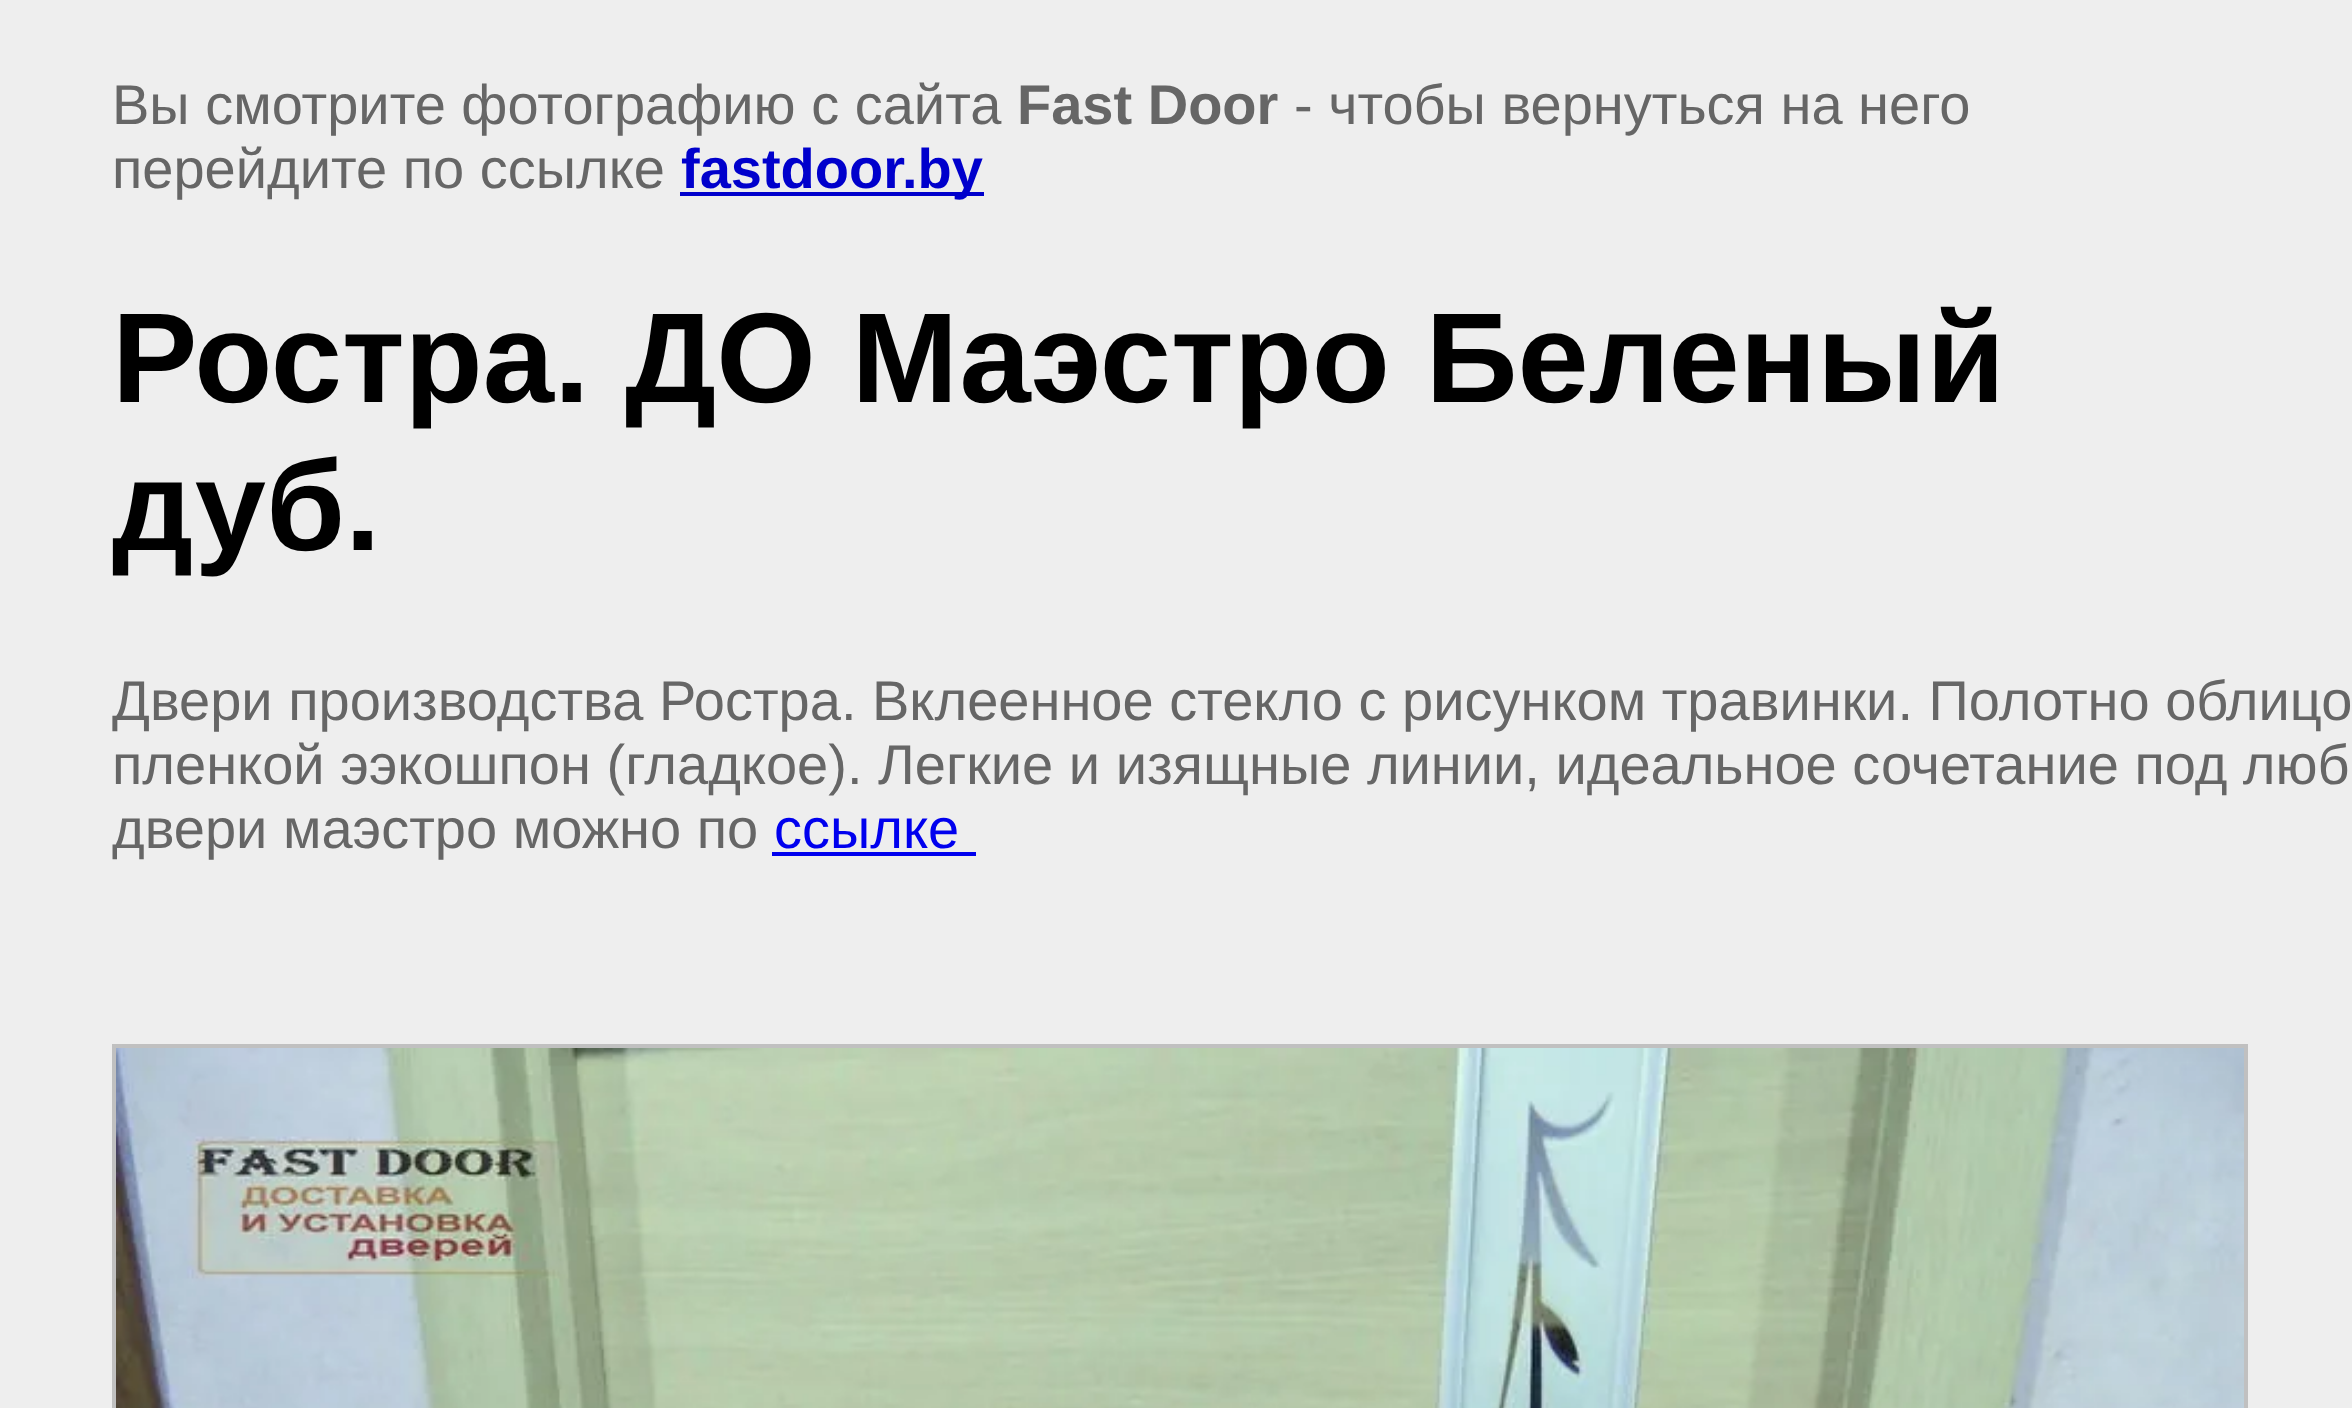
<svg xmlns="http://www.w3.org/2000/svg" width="2352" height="1408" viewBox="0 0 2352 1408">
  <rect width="100%" height="100%" fill="rgb(238,238,238)"/>
  <text x="112" y="124" font-family="Liberation Sans" font-size="56" fill="rgb(102,102,102)">Вы смотрите фотографию с сайта</text>
  <text x="1017" y="124" font-family="Liberation Sans" font-size="56" font-weight="bold" fill="rgb(102,102,102)">Fast Door</text>
  <g font-family="Liberation Sans" font-size="56" fill="rgb(102,102,102)">
    <text x="1294" y="124">- чтобы вернуться на него</text>
    <text x="112" y="188">перейдите по ссылке</text>
  </g>
  <rect x="680" y="192" width="304" height="4" fill="rgb(0,0,204)"/>
  <text x="681" y="188" font-family="Liberation Sans" font-size="56" font-weight="bold" fill="rgb(0,0,204)">fastdoor.by</text>
  <g font-family="Liberation Sans" font-size="128" font-weight="bold" fill="rgb(0,0,0)">
    <text>
      <tspan x="112" y="402">Ростра. ДО Маэстро Беленый</tspan>
      <tspan x="112" y="550">дуб.</tspan>
    </text>
  </g>
  <g font-family="Liberation Sans" font-size="56" fill="rgb(102,102,102)">
    <text>
      <tspan x="112" y="720">Двери производства Ростра. Вклеенное стекло с рисунком травинки. Полотно облицо</tspan>
      <tspan x="112" y="784">пленкой ээкошпон (гладкое). Легкие и изящные линии, идеальное сочетание под люб</tspan>
      <tspan x="112" y="848">двери маэстро можно по</tspan>
    </text>
  </g>
  <text x="774" y="848" font-family="Liberation Sans" font-size="56" fill="rgb(0,0,238)">ссылке</text>
  <rect x="772" y="852" width="204" height="4" fill="rgb(0,0,238)"/>
  <rect x="114" y="1046" width="2132" height="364" fill="none" stroke="rgb(192,192,192)" stroke-width="4"/>
  <image x="116" y="1048" width="2128" height="360" href="pic1.png"/>
</svg>
